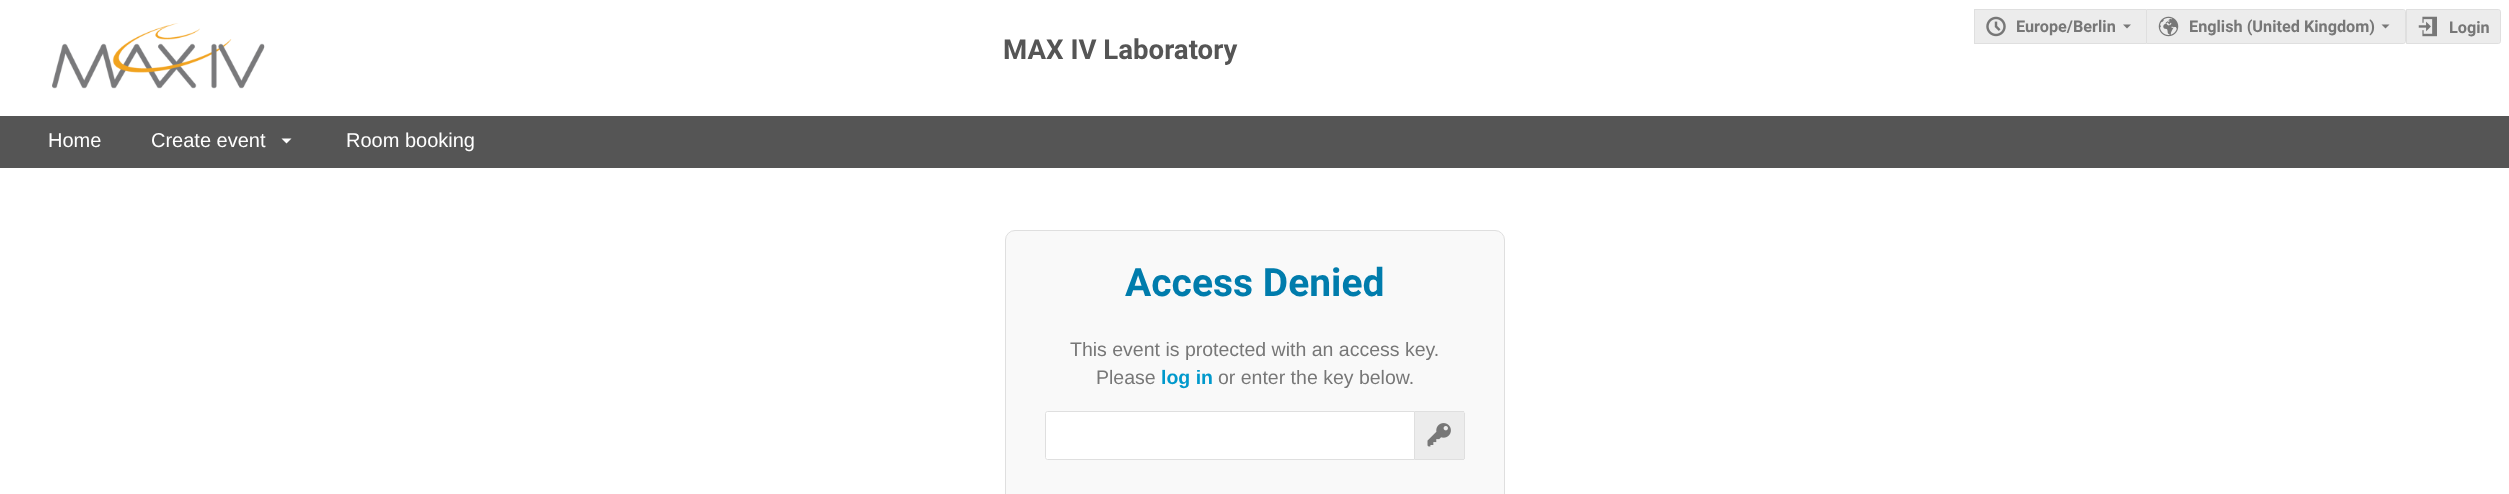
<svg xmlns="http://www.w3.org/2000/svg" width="2509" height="494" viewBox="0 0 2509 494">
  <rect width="100%" height="100%" fill="rgb(255,255,255)"/>
  <image x="52" y="23" width="213" height="66" href="pic1.png"/>
  <text x="1003" y="59" font-family="Roboto" font-size="27.6" font-weight="bold" fill="rgb(85,85,85)">MAX IV Laboratory</text>
  <rect x="1975" y="10" width="171" height="33" fill="rgb(236,236,236)"/>
  <rect x="1974" y="9" width="172" height="1" fill="rgb(223,223,223)"/>
  <rect x="1974" y="43" width="172" height="1" fill="rgb(223,223,223)"/>
  <rect x="1974" y="9" width="1" height="35" fill="rgb(223,223,223)"/>
  <image x="1986" y="16" width="20" height="21" href="pic2.png"/>
  <text x="2016" y="32" font-family="Roboto" font-size="16.25" font-weight="bold" fill="rgb(119,119,119)">Europe/Berlin</text>
  <path d="M2123 24.5L2127 28.5L2131 24.5Z" fill="rgb(119,119,119)"/>
  <path d="M2146.5 9.5H2403.5C2404.5 9.5 2405.5 10.5 2405.5 11.5V41.5C2405.5 42.5 2404.5 43.5 2403.5 43.5H2146.5Z" fill="rgb(236,236,236)" stroke="rgb(223,223,223)"/>
  <image x="2158" y="16" width="21" height="21" href="pic3.png"/>
  <text x="2189" y="32" font-family="Roboto" font-size="16.25" font-weight="bold" fill="rgb(119,119,119)">English (United Kingdom)</text>
  <path d="M2381.5 24.5L2385.5 28.5L2389.5 24.5Z" fill="rgb(119,119,119)"/>
  <path d="M2406.5 9.5H2498.5C2499.5 9.5 2500.5 10.5 2500.5 11.5V41.5C2500.5 42.5 2499.5 43.5 2498.5 43.5H2406.5Z" fill="rgb(236,236,236)" stroke="rgb(223,223,223)"/>
  <image x="2418" y="16" width="19" height="21" href="pic4.png"/>
  <text x="2449" y="33" font-family="Roboto" font-size="16.25" font-weight="bold" fill="rgb(119,119,119)">Login</text>
  <rect x="0" y="116" width="2509" height="52" fill="rgb(85,85,85)"/>
  <g font-family="Liberation Sans" font-size="20" fill="rgb(255,255,255)">
    <text x="48" y="147">Home</text>
    <text x="151" y="147">Create event</text>
  </g>
  <path d="M281.5 138.5L286.5 143.5L291.5 138.5Z" fill="rgb(255,255,255)"/>
  <text x="346" y="147" font-family="Liberation Sans" font-size="20" fill="rgb(255,255,255)">Room booking</text>
  <rect x="1005.5" y="230.5" width="499" height="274" rx="9.5" fill="rgb(249,249,249)" stroke="rgb(223,223,223)"/>
  <text x="1125" y="296" font-family="Roboto" font-size="39" font-weight="bold" fill="rgb(0,124,172)">Access Denied</text>
  <g font-family="Liberation Sans" font-size="19.5" fill="rgb(119,119,119)">
    <text x="1070" y="356">This event is protected with an access key.</text>
    <text x="1096" y="384">Please</text>
  </g>
  <text x="1161" y="384" font-family="Liberation Sans" font-size="19.5" font-weight="bold" fill="rgb(0,153,204)">log in</text>
  <text x="1218" y="384" font-family="Liberation Sans" font-size="19.5" fill="rgb(119,119,119)">or enter the key below.</text>
  <path d="M1047.5 411.5H1414.5V459.5H1047.5C1046.5 459.5 1045.5 458.5 1045.5 457.5V413.5C1045.5 412.5 1046.5 411.5 1047.5 411.5Z" fill="rgb(255,255,255)" stroke="rgb(223,223,223)"/>
  <path d="M1415 411H1462.5C1464 411 1465 412 1465 413.5V457.5C1465 459 1464 460 1462.5 460H1415Z" fill="rgb(236,236,236)"/>
  <rect x="1415" y="411" width="49" height="1" fill="rgb(223,223,223)"/>
  <rect x="1464" y="413" width="1" height="46" fill="rgb(223,223,223)"/>
  <rect x="1415" y="459" width="49" height="1" fill="rgb(223,223,223)"/>
  <image x="1427" y="423" width="24" height="24" href="pic5.png"/>
</svg>
